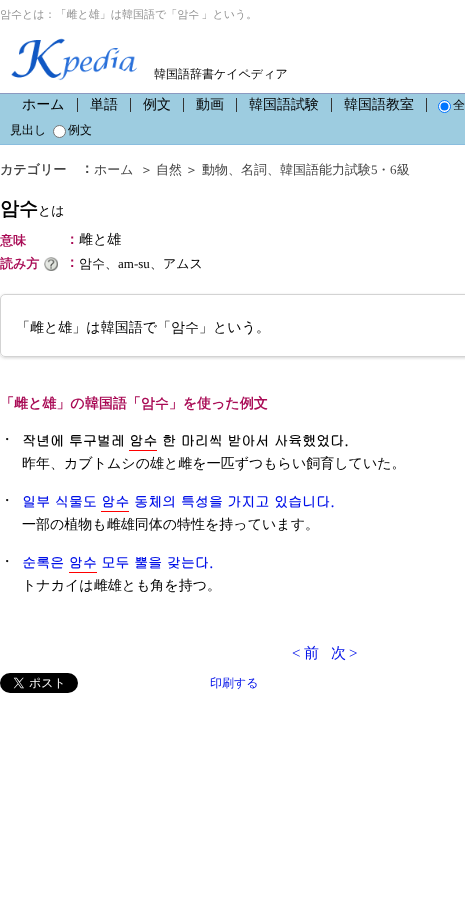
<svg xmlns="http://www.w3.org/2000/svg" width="465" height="917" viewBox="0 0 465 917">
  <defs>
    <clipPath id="clip1"><path d="M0 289H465V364H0ZM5 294H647C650 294 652 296 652 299V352C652 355 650 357 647 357H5C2 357 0 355 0 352V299C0 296 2 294 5 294Z" clip-rule="evenodd"/></clipPath>
  </defs>
  <rect width="100%" height="100%" fill="rgb(255,255,255)"/>
  <text x="0" y="18" word-spacing="-1" font-family="WenQuanYi Zen Hei" font-size="11" font-weight="500" fill="rgb(147,147,147)">암수とは：「雌と雄」は韓国語で「암수 」という。</text>
  <image x="11" y="38" width="126" height="43" href="pic1.png"/>
  <text x="154" y="78" font-family="WenQuanYi Zen Hei" font-size="12" font-weight="500" fill="rgb(0,0,0)">韓国語辞書ケイペディア</text>
  <rect x="0" y="94" width="465" height="50" fill="rgb(157,204,224)"/>
  <rect x="0" y="93" width="465" height="1" fill="rgb(140,154,193)"/>
  <rect x="0" y="144" width="465" height="1" fill="rgb(137,189,222)"/>
  <text x="22" y="109" font-family="WenQuanYi Zen Hei" font-size="14" font-weight="500" fill="rgb(0,0,0)">ホーム</text>
  <rect x="77" y="98" width="1" height="14" fill="rgb(51,51,51)"/>
  <text x="90" y="109" font-family="WenQuanYi Zen Hei" font-size="14" font-weight="500" fill="rgb(0,0,0)">単語</text>
  <rect x="130" y="98" width="1" height="14" fill="rgb(51,51,51)"/>
  <text x="143" y="109" font-family="WenQuanYi Zen Hei" font-size="14" font-weight="500" fill="rgb(0,0,0)">例文</text>
  <rect x="183" y="98" width="1" height="14" fill="rgb(51,51,51)"/>
  <text x="196" y="109" font-family="WenQuanYi Zen Hei" font-size="14" font-weight="500" fill="rgb(0,0,0)">動画</text>
  <rect x="236" y="98" width="1" height="14" fill="rgb(51,51,51)"/>
  <text x="249" y="109" font-family="WenQuanYi Zen Hei" font-size="14" font-weight="500" fill="rgb(0,0,0)">韓国語試験</text>
  <rect x="331" y="98" width="1" height="14" fill="rgb(51,51,51)"/>
  <text x="344" y="109" font-family="WenQuanYi Zen Hei" font-size="14" font-weight="500" fill="rgb(0,0,0)">韓国語教室</text>
  <rect x="426" y="98" width="1" height="14" fill="rgb(51,51,51)"/>
  <circle cx="444.5" cy="106.5" r="6" fill="rgb(255,255,255)" stroke="rgb(0,117,255)"/>
  <circle cx="444.5" cy="106.5" r="4" fill="rgb(0,117,255)"/>
  <g font-family="WenQuanYi Zen Hei" font-size="12" font-weight="500" fill="rgb(0,0,0)">
    <text x="453" y="109">全</text>
    <text x="10" y="134">見出し</text>
  </g>
  <circle cx="59.5" cy="131.5" r="6" fill="rgb(255,255,255)" stroke="rgb(118,118,118)"/>
  <text x="68" y="134" font-family="WenQuanYi Zen Hei" font-size="12" font-weight="500" fill="rgb(0,0,0)">例文</text>
  <text x="0" y="174" font-family="WenQuanYi Zen Hei" font-size="13" font-weight="bold" fill="rgb(68,68,68)">カテゴリー</text>
  <text x="80" y="173" font-family="WenQuanYi Zen Hei" font-size="14" font-weight="bold" fill="rgb(68,68,68)">：</text>
  <g font-family="WenQuanYi Zen Hei" font-size="13" font-weight="500" fill="rgb(68,68,68)">
    <text x="94" y="174">ホーム</text>
    <text x="140" y="174">＞</text>
    <text x="156" y="174">自然</text>
    <text x="185" y="174">＞</text>
    <text x="202" y="174">動物、名詞、韓国語能力試験</text>
  </g>
  <text x="371" y="174" font-family="Liberation Serif" font-size="13" fill="rgb(68,68,68)">5</text>
  <text x="377" y="174" font-family="WenQuanYi Zen Hei" font-size="13" font-weight="500" fill="rgb(68,68,68)">・</text>
  <text x="390" y="174" font-family="Liberation Serif" font-size="13" fill="rgb(68,68,68)">6</text>
  <text x="397" y="174" font-family="WenQuanYi Zen Hei" font-size="13" font-weight="500" fill="rgb(68,68,68)">級</text>
  <text x="0" y="215" font-family="WenQuanYi Zen Hei" font-size="19" font-weight="bold" fill="rgb(0,0,0)">암수</text>
  <text x="38" y="215" font-family="WenQuanYi Zen Hei" font-size="13" font-weight="500" fill="rgb(0,0,0)">とは</text>
  <text x="0" y="245" font-family="WenQuanYi Zen Hei" font-size="13" font-weight="bold" fill="rgb(169,11,85)">意味</text>
  <text x="65" y="244" font-family="WenQuanYi Zen Hei" font-size="14" font-weight="bold" fill="rgb(169,11,85)">：</text>
  <text x="79" y="244" font-family="WenQuanYi Zen Hei" font-size="14" font-weight="500" fill="rgb(0,0,0)">雌と雄</text>
  <text x="0" y="268" font-family="WenQuanYi Zen Hei" font-size="13" font-weight="bold" fill="rgb(169,11,85)">読み方</text>
  <image x="44" y="257" width="14" height="14" href="pic2.png"/>
  <text x="65" y="267" font-family="WenQuanYi Zen Hei" font-size="14" font-weight="bold" fill="rgb(169,11,85)">：</text>
  <text x="79" y="268" font-family="WenQuanYi Zen Hei" font-size="13" font-weight="500" fill="rgb(0,0,0)">암수、</text>
  <text x="118" y="268" font-family="Liberation Serif" font-size="13" fill="rgb(0,0,0)">am-su</text>
  <text x="150" y="268" font-family="WenQuanYi Zen Hei" font-size="13" font-weight="500" fill="rgb(0,0,0)">、アムス</text>
  <g clip-path="url(#clip1)">
    <rect x="0" y="295" width="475" height="63" rx="5" fill="rgb(211,211,211)" filter="blur(1.5px)"/>
  </g>
  <rect x="0.5" y="294.5" width="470" height="62" rx="4.5" fill="none" stroke="rgb(211,211,211)"/>
  <text x="16" y="332" font-family="WenQuanYi Zen Hei" font-size="14" font-weight="500" fill="rgb(0,0,0)">「雌と雄」は韓国語で「암수」という。</text>
  <text x="0" y="408" font-family="WenQuanYi Zen Hei" font-size="14" font-weight="bold" fill="rgb(169,11,85)">「雌と雄」の韓国語「암수」を使った例文</text>
  <text x="0" y="444" font-family="WenQuanYi Zen Hei" font-size="14" font-weight="500" fill="rgb(0,0,0)">・</text>
  <text x="22" y="446" font-family="Gulim" font-size="14" font-weight="bold" fill="rgb(0,0,0)">작년에 투구벌레 암수 한 마리씩 받아서 사육했었다.</text>
  <rect x="129" y="450" width="28" height="1" fill="rgb(255,0,0)"/>
  <g font-family="WenQuanYi Zen Hei" font-size="14" font-weight="500" fill="rgb(0,0,0)">
    <text x="22" y="468">昨年、カブトムシの雄と雌を一匹ずつもらい飼育していた。</text>
    <text x="0" y="505">・</text>
  </g>
  <text x="22" y="507" font-family="Gulim" font-size="14" font-weight="bold" fill="rgb(0,16,232)">일부 식물도 암수 동체의 특성을 가지고 있습니다.</text>
  <rect x="101" y="511" width="28" height="1" fill="rgb(255,0,0)"/>
  <g font-family="WenQuanYi Zen Hei" font-size="14" font-weight="500" fill="rgb(0,0,0)">
    <text x="22" y="529">一部の植物も雌雄同体の特性を持っています。</text>
    <text x="0" y="566">・</text>
  </g>
  <text x="22" y="568" font-family="Gulim" font-size="14" font-weight="bold" fill="rgb(0,16,232)">순록은 암수 모두 뿔을 갖는다.</text>
  <rect x="69" y="572" width="28" height="1" fill="rgb(255,0,0)"/>
  <text x="22" y="590" font-family="WenQuanYi Zen Hei" font-size="14" font-weight="500" fill="rgb(0,0,0)">トナカイは雌雄とも角を持つ。</text>
  <text x="292" y="658" font-family="Liberation Serif" font-size="15" fill="rgb(0,16,232)">&lt;</text>
  <g font-family="WenQuanYi Zen Hei" font-size="15" font-weight="500" fill="rgb(0,16,232)">
    <text x="304" y="658">前</text>
    <text x="331" y="658">次</text>
  </g>
  <text x="349" y="658" font-family="Liberation Serif" font-size="15" fill="rgb(0,16,232)">&gt;</text>
  <image x="0" y="673" width="78" height="20" href="pic3.png"/>
  <text x="210" y="687" font-family="WenQuanYi Zen Hei" font-size="12" font-weight="500" fill="rgb(0,16,232)">印刷する</text>
</svg>
